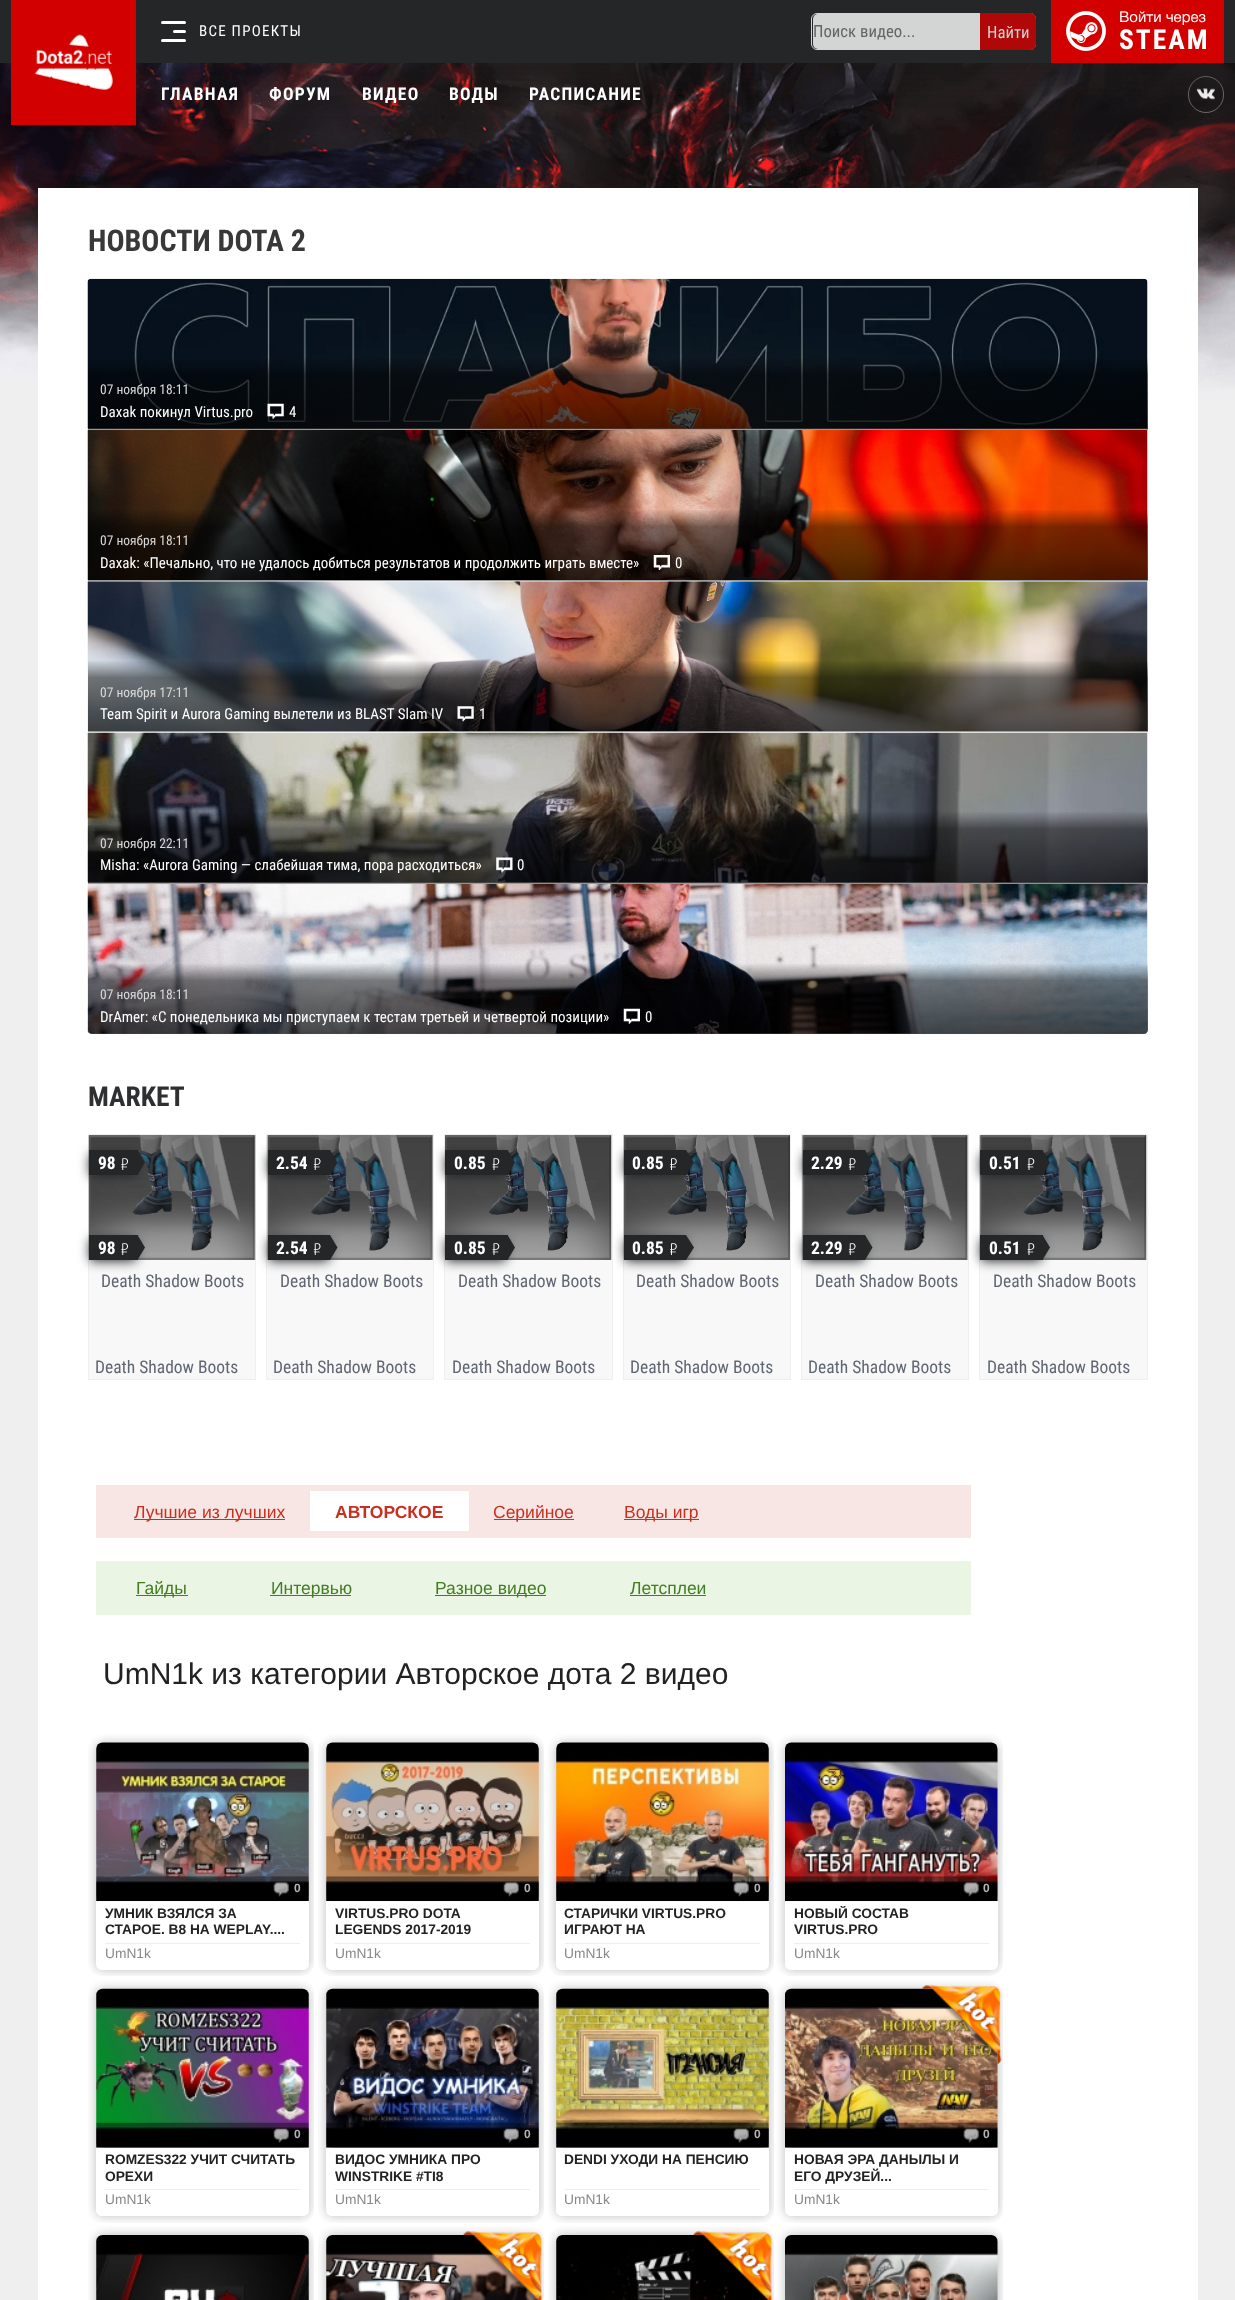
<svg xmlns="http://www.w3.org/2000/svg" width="1235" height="2300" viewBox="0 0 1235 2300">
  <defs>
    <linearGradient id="g1" gradientUnits="userSpaceOnUse" x1="618" y1="357" x2="618" y2="429"><stop offset="0" stop-color="rgb(0,0,0)" stop-opacity="0"/><stop offset="0.25" stop-color="rgb(0,0,0)" stop-opacity="0.5"/><stop offset="1" stop-color="rgb(0,0,0)" stop-opacity="0.7"/></linearGradient>
    <linearGradient id="g2" gradientUnits="userSpaceOnUse" x1="618" y1="509" x2="618" y2="580"><stop offset="0" stop-color="rgb(0,0,0)" stop-opacity="0"/><stop offset="0.25" stop-color="rgb(0,0,0)" stop-opacity="0.5"/><stop offset="1" stop-color="rgb(0,0,0)" stop-opacity="0.7"/></linearGradient>
    <linearGradient id="g3" gradientUnits="userSpaceOnUse" x1="618" y1="660" x2="618" y2="731"><stop offset="0" stop-color="rgb(0,0,0)" stop-opacity="0"/><stop offset="0.25" stop-color="rgb(0,0,0)" stop-opacity="0.5"/><stop offset="1" stop-color="rgb(0,0,0)" stop-opacity="0.7"/></linearGradient>
    <linearGradient id="g4" gradientUnits="userSpaceOnUse" x1="618" y1="811" x2="618" y2="883"><stop offset="0" stop-color="rgb(0,0,0)" stop-opacity="0"/><stop offset="0.25" stop-color="rgb(0,0,0)" stop-opacity="0.5"/><stop offset="1" stop-color="rgb(0,0,0)" stop-opacity="0.7"/></linearGradient>
    <linearGradient id="g5" gradientUnits="userSpaceOnUse" x1="618" y1="963" x2="618" y2="1034"><stop offset="0" stop-color="rgb(0,0,0)" stop-opacity="0"/><stop offset="0.25" stop-color="rgb(0,0,0)" stop-opacity="0.5"/><stop offset="1" stop-color="rgb(0,0,0)" stop-opacity="0.7"/></linearGradient>
    <clipPath id="clip1"><rect x="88" y="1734" width="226" height="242" rx="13"/></clipPath>
    <clipPath id="clip2"><rect x="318" y="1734" width="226" height="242" rx="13"/></clipPath>
    <clipPath id="clip3"><rect x="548" y="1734" width="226" height="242" rx="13"/></clipPath>
    <clipPath id="clip4"><rect x="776" y="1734" width="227" height="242" rx="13"/></clipPath>
    <clipPath id="clip5"><rect x="794" y="1906" width="195" height="32"/></clipPath>
    <clipPath id="clip6"><rect x="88" y="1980" width="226" height="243" rx="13"/></clipPath>
    <clipPath id="clip7"><rect x="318" y="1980" width="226" height="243" rx="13"/></clipPath>
    <clipPath id="clip8"><rect x="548" y="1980" width="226" height="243" rx="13"/></clipPath>
    <clipPath id="clip9"><rect x="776" y="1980" width="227" height="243" rx="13"/></clipPath>
    <clipPath id="clip10"><rect x="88" y="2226" width="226" height="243" rx="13"/></clipPath>
    <clipPath id="clip11"><rect x="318" y="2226" width="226" height="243" rx="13"/></clipPath>
    <clipPath id="clip12"><rect x="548" y="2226" width="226" height="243" rx="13"/></clipPath>
    <clipPath id="clip13"><rect x="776" y="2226" width="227" height="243" rx="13"/></clipPath>
  </defs>
  <rect width="100%" height="100%" fill="rgb(239,239,239)"/>
  <image x="0" y="63" width="1235" height="338" href="pic1.png"/>
  <rect x="1188.5" y="76.5" width="35" height="36" rx="17.5" fill="none" stroke="rgba(250,250,250,0.36)"/>
  <image x="1196" y="88" width="19" height="12" href="pic4.png"/>
  <rect x="-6" y="-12" width="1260" height="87" fill="rgba(30,30,30,0.4)" filter="blur(25px)"/>
  <rect x="0" y="0" width="1235" height="63" fill="rgb(36,38,40)"/>
  <rect x="11" y="0" width="125" height="125" fill="rgb(211,0,0)"/>
  <image x="34" y="34" width="79" height="56" href="pic2.png"/>
  <rect x="173" y="30" width="13" height="3" rx="1.5" fill="rgb(255,255,255)"/>
  <rect x="161" y="21" width="25" height="3" rx="1.5" fill="rgb(255,255,255)"/>
  <rect x="161" y="39" width="25" height="3" rx="1.5" fill="rgb(255,255,255)"/>
  <text x="199" y="36" font-family="Roboto Condensed" font-size="15" letter-spacing="1.25" fill="rgb(255,255,255)">ВСЕ ПРОЕКТЫ</text>
  <rect x="813" y="14" width="222" height="35" rx="5" fill="rgb(211,212,212)"/>
  <rect x="811.5" y="13.5" width="224" height="36" rx="5.5" fill="none" stroke="rgb(211,212,212)"/>
  <text x="813" y="37" font-family="Roboto Condensed" font-size="16.75" fill="rgb(101,101,102)">Поиск видео...</text>
  <path d="M980 13H1030C1033.5 13 1036 15.5 1036 19V44C1036 47.5 1033.5 50 1030 50H980Z" fill="rgb(176,8,8)"/>
  <text x="987" y="38" font-family="Roboto Condensed" font-size="16.75" fill="rgb(211,212,212)">Найти</text>
  <rect x="1051" y="0" width="173" height="63" fill="rgb(211,0,0)"/>
  <image x="1066" y="11" width="40" height="40" href="pic3.png"/>
  <text x="1119" y="22" font-family="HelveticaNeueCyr" font-size="15" fill="rgb(255,255,255)">Войти через</text>
  <text x="1119" y="49" font-family="Roboto Condensed" font-size="27.5" font-weight="bold" letter-spacing="2" fill="rgb(255,255,255)">STEAM</text>
  <g font-family="Roboto Condensed" font-size="17.5" font-weight="bold" letter-spacing="1.25" fill="rgb(255,255,255)">
    <text x="161" y="100">ГЛАВНАЯ</text>
    <text x="269" y="100">ФОРУМ</text>
    <text x="362" y="100">ВИДЕО</text>
    <text x="449" y="100">ВОДЫ</text>
    <text x="529" y="100">РАСПИСАНИЕ</text>
  </g>
  <rect x="38" y="188" width="1160" height="2112" fill="rgb(255,255,255)"/>
  <text x="88" y="251" font-family="Roboto Condensed" font-size="30" font-weight="bold" fill="rgb(56,56,56)">НОВОСТИ DOTA 2</text>
  <rect x="88" y="429" width="1060" height="1" fill="rgb(153,153,153)"/>
  <image x="87" y="278" width="1061" height="151" href="pic5.png"/>
  <rect x="88" y="358" width="1060" height="71" fill="url(#g1)"/>
  <text x="100" y="394" font-family="Roboto Condensed" font-size="13.5" fill="rgb(217,217,217)">07 ноября 18:11</text>
  <text x="100" y="417" font-family="Roboto Condensed" font-size="15" fill="rgb(255,255,255)">Daxak покинул Virtus.pro</text>
  <image x="267" y="403" width="17" height="16" href="pic6.png"/>
  <text x="289" y="417" font-family="Roboto Condensed" font-size="15" fill="rgb(255,255,255)">4</text>
  <rect x="88" y="580" width="1060" height="1" fill="rgb(153,153,153)"/>
  <image x="87" y="430" width="1061" height="150" href="pic7.png"/>
  <rect x="88" y="510" width="1060" height="70" fill="url(#g2)"/>
  <text x="100" y="545" font-family="Roboto Condensed" font-size="13.5" fill="rgb(217,217,217)">07 ноября 18:11</text>
  <text x="100" y="568" font-family="Roboto Condensed" font-size="15" fill="rgb(255,255,255)">Daxak: «Печально, что не удалось добиться результатов и продолжить играть вместе»</text>
  <image x="653" y="555" width="17" height="15" href="pic8.png"/>
  <text x="675" y="568" font-family="Roboto Condensed" font-size="15" fill="rgb(255,255,255)">0</text>
  <rect x="88" y="731" width="1060" height="1" fill="rgb(153,153,153)"/>
  <image x="87" y="581" width="1061" height="151" href="pic9.png"/>
  <rect x="88" y="661" width="1060" height="70" fill="url(#g3)"/>
  <text x="100" y="697" font-family="Roboto Condensed" font-size="13.5" fill="rgb(217,217,217)">07 ноября 17:11</text>
  <text x="100" y="719" font-family="Roboto Condensed" font-size="15" fill="rgb(255,255,255)">Team Spirit и Aurora Gaming вылетели из BLAST Slam IV</text>
  <image x="457" y="706" width="17" height="16" href="pic10.png"/>
  <text x="479" y="719" font-family="Roboto Condensed" font-size="15" fill="rgb(255,255,255)">1</text>
  <rect x="88" y="883" width="1060" height="1" fill="rgb(153,153,153)"/>
  <image x="87" y="732" width="1061" height="151" href="pic11.png"/>
  <rect x="88" y="812" width="1060" height="71" fill="url(#g4)"/>
  <text x="100" y="848" font-family="Roboto Condensed" font-size="13.5" fill="rgb(217,217,217)">07 ноября 22:11</text>
  <text x="100" y="870" font-family="Roboto Condensed" font-size="15" fill="rgb(255,255,255)">Misha: «Aurora Gaming — слабейшая тима, пора расходиться»</text>
  <image x="496" y="857" width="17" height="16" href="pic12.png"/>
  <text x="517" y="870" font-family="Roboto Condensed" font-size="15" fill="rgb(255,255,255)">0</text>
  <image x="87" y="883" width="1061" height="151" href="pic13.png"/>
  <path d="M88 963H1148V1030C1148 1032 1146 1034 1144 1034H92C90 1034 88 1032 88 1030Z" fill="url(#g5)"/>
  <text x="100" y="999" font-family="Roboto Condensed" font-size="13.5" fill="rgb(217,217,217)">07 ноября 18:11</text>
  <text x="100" y="1022" font-family="Roboto Condensed" font-size="15" fill="rgb(255,255,255)">DrAmer: «С понедельника мы приступаем к тестам третьей и четвертой позиции»</text>
  <image x="623" y="1008" width="17" height="16" href="pic14.png"/>
  <text x="645" y="1022" font-family="Roboto Condensed" font-size="15" fill="rgb(255,255,255)">0</text>
  <text x="88" y="1106" font-family="Roboto Condensed" font-size="27.5" font-weight="bold" fill="rgb(46,47,48)">MARKET</text>
  <rect x="88.5" y="1134.5" width="167" height="245" fill="rgb(248,248,248)" stroke="rgb(239,239,239)"/>
  <image x="88" y="1135" width="168" height="125" href="pic15.png"/>
  <rect x="90" y="1154" width="46" height="22" fill="rgb(36,38,40)" filter="blur(6px)"/>
  <rect x="89" y="1150" width="49" height="25" fill="rgb(36,38,40)"/>
  <text x="98" y="1169" font-family="Roboto Condensed" font-size="17.5" font-weight="bold" fill="rgb(255,255,255)">98</text>
  <image x="121" y="1158" width="7" height="12" href="pic16.png"/>
  <path d="M137.5 1175V1150L145 1162.5Z" fill="rgb(36,38,40)"/>
  <text x="95" y="1373" font-family="Roboto Condensed" font-size="17.5" fill="rgb(96,102,114)">Death Shadow Boots</text>
  <rect x="90" y="1239" width="46" height="22" fill="rgb(36,38,40)" filter="blur(6px)"/>
  <rect x="89" y="1235" width="49" height="25" fill="rgb(36,38,40)"/>
  <text x="98" y="1254" font-family="Roboto Condensed" font-size="17.5" font-weight="bold" fill="rgb(255,255,255)">98</text>
  <image x="121" y="1243" width="7" height="12" href="pic16.png"/>
  <path d="M137.5 1260V1235L145 1247.5Z" fill="rgb(36,38,40)"/>
  <text x="101" y="1287" font-family="Roboto Condensed" font-size="17.5" fill="rgb(96,102,114)">Death Shadow Boots</text>
  <rect x="266.5" y="1134.5" width="167" height="245" fill="rgb(248,248,248)" stroke="rgb(239,239,239)"/>
  <image x="266" y="1135" width="167" height="125" href="pic17.png"/>
  <rect x="269" y="1154" width="60" height="22" fill="rgb(36,38,40)" filter="blur(6px)"/>
  <rect x="268" y="1150" width="62" height="25" fill="rgb(36,38,40)"/>
  <text x="276" y="1169" font-family="Roboto Condensed" font-size="17.5" font-weight="bold" fill="rgb(255,255,255)">2.54</text>
  <image x="313" y="1158" width="8" height="12" href="pic18.png"/>
  <path d="M330 1175V1150L337.5 1162.5Z" fill="rgb(36,38,40)"/>
  <text x="273" y="1373" font-family="Roboto Condensed" font-size="17.5" fill="rgb(96,102,114)">Death Shadow Boots</text>
  <rect x="269" y="1239" width="60" height="22" fill="rgb(36,38,40)" filter="blur(6px)"/>
  <rect x="268" y="1235" width="62" height="25" fill="rgb(36,38,40)"/>
  <text x="276" y="1254" font-family="Roboto Condensed" font-size="17.5" font-weight="bold" fill="rgb(255,255,255)">2.54</text>
  <image x="313" y="1243" width="8" height="12" href="pic18.png"/>
  <path d="M330 1260V1235L337.5 1247.5Z" fill="rgb(36,38,40)"/>
  <text x="280" y="1287" font-family="Roboto Condensed" font-size="17.5" fill="rgb(96,102,114)">Death Shadow Boots</text>
  <rect x="444.5" y="1134.5" width="168" height="245" fill="rgb(248,248,248)" stroke="rgb(239,239,239)"/>
  <image x="445" y="1135" width="167" height="125" href="pic19.png"/>
  <rect x="446" y="1154" width="60" height="22" fill="rgb(36,38,40)" filter="blur(6px)"/>
  <rect x="445" y="1150" width="63" height="25" fill="rgb(36,38,40)"/>
  <text x="454" y="1169" font-family="Roboto Condensed" font-size="17.5" font-weight="bold" fill="rgb(255,255,255)">0.85</text>
  <image x="492" y="1158" width="8" height="12" href="pic20.png"/>
  <path d="M507.5 1175V1150L515 1162.5Z" fill="rgb(36,38,40)"/>
  <text x="452" y="1373" font-family="Roboto Condensed" font-size="17.5" fill="rgb(96,102,114)">Death Shadow Boots</text>
  <rect x="446" y="1239" width="60" height="22" fill="rgb(36,38,40)" filter="blur(6px)"/>
  <rect x="445" y="1235" width="63" height="25" fill="rgb(36,38,40)"/>
  <text x="454" y="1254" font-family="Roboto Condensed" font-size="17.5" font-weight="bold" fill="rgb(255,255,255)">0.85</text>
  <image x="492" y="1243" width="8" height="12" href="pic20.png"/>
  <path d="M507.5 1260V1235L515 1247.5Z" fill="rgb(36,38,40)"/>
  <text x="458" y="1287" font-family="Roboto Condensed" font-size="17.5" fill="rgb(96,102,114)">Death Shadow Boots</text>
  <rect x="624" y="1260" width="166" height="119" fill="rgb(248,248,248)"/>
  <rect x="623.5" y="1134.5" width="167" height="245" fill="none" stroke="rgb(239,239,239)"/>
  <image x="623" y="1135" width="167" height="125" href="pic21.png"/>
  <rect x="625" y="1154" width="60" height="22" fill="rgb(36,38,40)" filter="blur(6px)"/>
  <rect x="624" y="1150" width="62" height="25" fill="rgb(36,38,40)"/>
  <text x="632" y="1169" font-family="Roboto Condensed" font-size="17.5" font-weight="bold" fill="rgb(255,255,255)">0.85</text>
  <image x="670" y="1158" width="7" height="12" href="pic22.png"/>
  <path d="M686 1175V1150L694 1162.5Z" fill="rgb(36,38,40)"/>
  <text x="630" y="1373" font-family="Roboto Condensed" font-size="17.5" fill="rgb(96,102,114)">Death Shadow Boots</text>
  <rect x="625" y="1239" width="60" height="22" fill="rgb(36,38,40)" filter="blur(6px)"/>
  <rect x="624" y="1235" width="62" height="25" fill="rgb(36,38,40)"/>
  <text x="632" y="1254" font-family="Roboto Condensed" font-size="17.5" font-weight="bold" fill="rgb(255,255,255)">0.85</text>
  <image x="670" y="1243" width="7" height="12" href="pic22.png"/>
  <path d="M686 1260V1235L694 1247.5Z" fill="rgb(36,38,40)"/>
  <text x="636" y="1287" font-family="Roboto Condensed" font-size="17.5" fill="rgb(96,102,114)">Death Shadow Boots</text>
  <rect x="801.5" y="1134.5" width="167" height="245" fill="rgb(248,248,248)" stroke="rgb(239,239,239)"/>
  <image x="802" y="1135" width="167" height="125" href="pic23.png"/>
  <rect x="804" y="1154" width="60" height="22" fill="rgb(36,38,40)" filter="blur(6px)"/>
  <rect x="803" y="1150" width="62" height="25" fill="rgb(36,38,40)"/>
  <text x="811" y="1169" font-family="Roboto Condensed" font-size="17.5" font-weight="bold" fill="rgb(255,255,255)">2.29</text>
  <image x="848" y="1158" width="8" height="12" href="pic18.png"/>
  <path d="M865 1175V1150L872.5 1162.5Z" fill="rgb(36,38,40)"/>
  <text x="808" y="1373" font-family="Roboto Condensed" font-size="17.5" fill="rgb(96,102,114)">Death Shadow Boots</text>
  <rect x="804" y="1239" width="60" height="22" fill="rgb(36,38,40)" filter="blur(6px)"/>
  <rect x="803" y="1235" width="62" height="25" fill="rgb(36,38,40)"/>
  <text x="811" y="1254" font-family="Roboto Condensed" font-size="17.5" font-weight="bold" fill="rgb(255,255,255)">2.29</text>
  <image x="848" y="1243" width="8" height="12" href="pic18.png"/>
  <path d="M865 1260V1235L872.5 1247.5Z" fill="rgb(36,38,40)"/>
  <text x="815" y="1287" font-family="Roboto Condensed" font-size="17.5" fill="rgb(96,102,114)">Death Shadow Boots</text>
  <rect x="979.5" y="1134.5" width="168" height="245" fill="rgb(248,248,248)" stroke="rgb(239,239,239)"/>
  <image x="979" y="1135" width="168" height="125" href="pic24.png"/>
  <rect x="981" y="1154" width="60" height="22" fill="rgb(36,38,40)" filter="blur(6px)"/>
  <rect x="980" y="1150" width="63" height="25" fill="rgb(36,38,40)"/>
  <text x="989" y="1169" font-family="Roboto Condensed" font-size="17.5" font-weight="bold" fill="rgb(255,255,255)">0.51</text>
  <image x="1027" y="1158" width="8" height="12" href="pic20.png"/>
  <path d="M1042.5 1175V1150L1050 1162.5Z" fill="rgb(36,38,40)"/>
  <text x="987" y="1373" font-family="Roboto Condensed" font-size="17.5" fill="rgb(96,102,114)">Death Shadow Boots</text>
  <rect x="981" y="1239" width="60" height="22" fill="rgb(36,38,40)" filter="blur(6px)"/>
  <rect x="980" y="1235" width="63" height="25" fill="rgb(36,38,40)"/>
  <text x="989" y="1254" font-family="Roboto Condensed" font-size="17.5" font-weight="bold" fill="rgb(255,255,255)">0.51</text>
  <image x="1027" y="1243" width="8" height="12" href="pic20.png"/>
  <path d="M1042.5 1260V1235L1050 1247.5Z" fill="rgb(36,38,40)"/>
  <text x="993" y="1287" font-family="Roboto Condensed" font-size="17.5" fill="rgb(96,102,114)">Death Shadow Boots</text>
  <rect x="96" y="1485" width="875" height="53" fill="rgb(248,230,228)"/>
  <rect x="134" y="1519" width="151" height="1" fill="rgb(200,48,33)"/>
  <text x="134" y="1518" font-family="Liberation Sans" font-size="17.5" fill="rgb(200,48,33)">Лучшие из лучших</text>
  <rect x="310" y="1491" width="159" height="40" fill="rgb(255,255,255)"/>
  <text x="335" y="1518" font-family="Liberation Sans" font-size="17.5" font-weight="bold" fill="rgb(200,48,33)">АВТОРСКОЕ</text>
  <rect x="494" y="1519" width="80" height="1" fill="rgb(200,48,33)"/>
  <text x="493" y="1518" font-family="Liberation Sans" font-size="17.5" fill="rgb(200,48,33)">Серийное</text>
  <rect x="624" y="1519" width="75" height="1" fill="rgb(200,48,33)"/>
  <text x="624" y="1518" font-family="Liberation Sans" font-size="17.5" fill="rgb(200,48,33)">Воды игр</text>
  <rect x="96" y="1561" width="875" height="54" fill="rgb(234,246,227)"/>
  <rect x="136" y="1595" width="52" height="1" fill="rgb(67,124,34)"/>
  <text x="136" y="1594" font-family="Liberation Sans" font-size="17.5" fill="rgb(67,124,34)">Гайды</text>
  <rect x="270" y="1595" width="81" height="1" fill="rgb(67,124,34)"/>
  <text x="271" y="1594" font-family="Liberation Sans" font-size="17.5" fill="rgb(67,124,34)">Интервью</text>
  <rect x="435" y="1595" width="111" height="1" fill="rgb(67,124,34)"/>
  <g font-family="Liberation Sans" font-size="17.5" fill="rgb(67,124,34)">
    <text x="435" y="1594">Разное видео</text>
    <text x="630" y="1594">Летсплеи</text>
  </g>
  <rect x="630" y="1595" width="76" height="1" fill="rgb(67,124,34)"/>
  <text x="103" y="1684" font-family="Liberation Sans" font-size="30" fill="rgb(34,34,34)">UmN1k из категории Авторское дота 2 видео</text>
  <g clip-path="url(#clip1)">
    <rect x="96" y="1743" width="213" height="227" rx="6" fill="rgb(187,187,187)" filter="blur(5.5px)"/>
  </g>
  <image x="96" y="1742" width="213" height="159" href="pic25.png"/>
  <path d="M96 1901H309V1964C309 1967.5 306.5 1970 303 1970H102C98.5 1970 96 1967.5 96 1964Z" fill="rgb(255,255,255)"/>
  <image x="96" y="1876" width="213" height="26" href="pic26.png"/>
  <image x="273" y="1882" width="16" height="15" href="pic27.png"/>
  <text x="294" y="1892" font-family="Liberation Sans" font-size="12" font-weight="bold" fill="rgb(179,179,179)">0</text>
  <rect x="105" y="1943" width="195" height="1" fill="rgb(238,238,238)"/>
  <g font-family="Liberation Sans" font-size="13.75" font-weight="bold" fill="rgb(34,34,34)">
    <text>
      <tspan x="105" y="1918">УМНИК ВЗЯЛСЯ ЗА</tspan>
      <tspan x="105" y="1934">СТАРОЕ. B8 НА WEPLAY....</tspan>
    </text>
  </g>
  <text x="105" y="1958" font-family="Liberation Sans" font-size="13.75" fill="rgb(136,136,136)">UmN1k</text>
  <g clip-path="url(#clip2)">
    <rect x="326" y="1743" width="213" height="227" rx="6" fill="rgb(187,187,187)" filter="blur(5.5px)"/>
  </g>
  <image x="326" y="1742" width="213" height="159" href="pic28.png"/>
  <path d="M326 1901H539V1964C539 1967.5 536.5 1970 533 1970H332C328.5 1970 326 1967.5 326 1964Z" fill="rgb(255,255,255)"/>
  <image x="326" y="1876" width="213" height="26" href="pic29.png"/>
  <image x="503" y="1882" width="16" height="15" href="pic30.png"/>
  <text x="524" y="1892" font-family="Liberation Sans" font-size="12" font-weight="bold" fill="rgb(179,179,179)">0</text>
  <rect x="335" y="1943" width="195" height="1" fill="rgb(238,238,238)"/>
  <g font-family="Liberation Sans" font-size="13.75" font-weight="bold" fill="rgb(34,34,34)">
    <text>
      <tspan x="335" y="1918">VIRTUS.PRO DOTA</tspan>
      <tspan x="335" y="1934">LEGENDS 2017-2019</tspan>
    </text>
  </g>
  <text x="335" y="1958" font-family="Liberation Sans" font-size="13.75" fill="rgb(136,136,136)">UmN1k</text>
  <g clip-path="url(#clip3)">
    <rect x="556" y="1743" width="213" height="227" rx="6" fill="rgb(187,187,187)" filter="blur(5.5px)"/>
  </g>
  <image x="556" y="1742" width="213" height="159" href="pic31.png"/>
  <path d="M556 1901H769V1964C769 1967.5 766.5 1970 763 1970H562C558.5 1970 556 1967.5 556 1964Z" fill="rgb(255,255,255)"/>
  <image x="556" y="1876" width="213" height="26" href="pic32.png"/>
  <image x="733" y="1882" width="16" height="15" href="pic33.png"/>
  <text x="754" y="1892" font-family="Liberation Sans" font-size="12" font-weight="bold" fill="rgb(179,179,179)">0</text>
  <rect x="565" y="1943" width="195" height="1" fill="rgb(238,238,238)"/>
  <g font-family="Liberation Sans" font-size="13.75" font-weight="bold" fill="rgb(34,34,34)">
    <text>
      <tspan x="564" y="1918">СТАРИЧКИ VIRTUS.PRO</tspan>
      <tspan x="564" y="1934">ИГРАЮТ НА</tspan>
    </text>
  </g>
  <text x="564" y="1958" font-family="Liberation Sans" font-size="13.75" fill="rgb(136,136,136)">UmN1k</text>
  <g clip-path="url(#clip4)">
    <rect x="785" y="1743" width="213" height="227" rx="6" fill="rgb(187,187,187)" filter="blur(5.5px)"/>
  </g>
  <image x="785" y="1742" width="213" height="159" href="pic34.png"/>
  <path d="M785 1901H998V1964C998 1967.5 995.5 1970 992 1970H791C787.5 1970 785 1967.5 785 1964Z" fill="rgb(255,255,255)"/>
  <image x="785" y="1876" width="213" height="26" href="pic35.png"/>
  <image x="963" y="1882" width="16" height="15" href="pic36.png"/>
  <text x="983" y="1892" font-family="Liberation Sans" font-size="12" font-weight="bold" fill="rgb(179,179,179)">0</text>
  <rect x="794" y="1943" width="195" height="1" fill="rgb(238,238,238)"/>
  <g clip-path="url(#clip5)">
    <text x="794" y="1918" font-family="Liberation Sans" font-size="13.75" font-weight="bold" fill="rgb(34,34,34)">НОВЫЙ СОСТАВ</text>
  </g>
  <text x="794" y="1934" font-family="Liberation Sans" font-size="13.75" font-weight="bold" fill="rgb(34,34,34)">VIRTUS.PRO</text>
  <text x="794" y="1958" font-family="Liberation Sans" font-size="13.75" fill="rgb(136,136,136)">UmN1k</text>
  <g clip-path="url(#clip6)">
    <rect x="96" y="1989" width="213" height="227" rx="6" fill="rgb(187,187,187)" filter="blur(5.5px)"/>
  </g>
  <image x="96" y="1988" width="213" height="160" href="pic37.png"/>
  <image x="96" y="2122" width="213" height="26" href="pic38.png"/>
  <image x="273" y="2128" width="16" height="15" href="pic39.png"/>
  <text x="294" y="2138" font-family="Liberation Sans" font-size="12" font-weight="bold" fill="rgb(179,179,179)">0</text>
  <path d="M96 2148H309V2210C309 2213.5 306.5 2216 303 2216H102C98.5 2216 96 2213.5 96 2210Z" fill="rgb(255,255,255)"/>
  <rect x="105" y="2189" width="195" height="1" fill="rgb(238,238,238)"/>
  <g font-family="Liberation Sans" font-size="13.75" font-weight="bold" fill="rgb(34,34,34)">
    <text>
      <tspan x="105" y="2164">ROMZES322 УЧИТ СЧИТАТЬ</tspan>
      <tspan x="105" y="2181">ОРЕХИ</tspan>
    </text>
  </g>
  <text x="105" y="2204" font-family="Liberation Sans" font-size="13.75" fill="rgb(136,136,136)">UmN1k</text>
  <g clip-path="url(#clip7)">
    <rect x="326" y="1989" width="213" height="227" rx="6" fill="rgb(187,187,187)" filter="blur(5.5px)"/>
  </g>
  <image x="326" y="1988" width="213" height="160" href="pic40.png"/>
  <image x="326" y="2122" width="213" height="26" href="pic41.png"/>
  <image x="503" y="2128" width="16" height="15" href="pic42.png"/>
  <text x="524" y="2138" font-family="Liberation Sans" font-size="12" font-weight="bold" fill="rgb(179,179,179)">0</text>
  <path d="M326 2148H539V2210C539 2213.5 536.5 2216 533 2216H332C328.5 2216 326 2213.5 326 2210Z" fill="rgb(255,255,255)"/>
  <rect x="335" y="2189" width="195" height="1" fill="rgb(238,238,238)"/>
  <g font-family="Liberation Sans" font-size="13.75" font-weight="bold" fill="rgb(34,34,34)">
    <text>
      <tspan x="335" y="2164">ВИДОС УМНИКА ПРО</tspan>
      <tspan x="335" y="2181">WINSTRIKE #TI8</tspan>
    </text>
  </g>
  <text x="335" y="2204" font-family="Liberation Sans" font-size="13.75" fill="rgb(136,136,136)">UmN1k</text>
  <g clip-path="url(#clip8)">
    <rect x="556" y="1989" width="213" height="227" rx="6" fill="rgb(187,187,187)" filter="blur(5.5px)"/>
  </g>
  <image x="556" y="1988" width="213" height="160" href="pic43.png"/>
  <image x="556" y="2122" width="213" height="26" href="pic44.png"/>
  <image x="733" y="2128" width="16" height="15" href="pic45.png"/>
  <text x="754" y="2138" font-family="Liberation Sans" font-size="12" font-weight="bold" fill="rgb(179,179,179)">0</text>
  <path d="M556 2148H769V2210C769 2213.5 766.5 2216 763 2216H562C558.5 2216 556 2213.5 556 2210Z" fill="rgb(255,255,255)"/>
  <rect x="565" y="2189" width="195" height="1" fill="rgb(238,238,238)"/>
  <text x="564" y="2164" font-family="Liberation Sans" font-size="13.75" font-weight="bold" fill="rgb(34,34,34)">DENDI УХОДИ НА ПЕНСИЮ</text>
  <text x="564" y="2204" font-family="Liberation Sans" font-size="13.75" fill="rgb(136,136,136)">UmN1k</text>
  <g clip-path="url(#clip9)">
    <rect x="785" y="1989" width="213" height="227" rx="6" fill="rgb(187,187,187)" filter="blur(5.5px)"/>
  </g>
  <image x="785" y="1988" width="213" height="160" href="pic47.png"/>
  <image x="922" y="1985" width="80" height="79" href="pic46.png"/>
  <image x="785" y="2122" width="213" height="26" href="pic48.png"/>
  <image x="963" y="2128" width="16" height="15" href="pic49.png"/>
  <text x="983" y="2138" font-family="Liberation Sans" font-size="12" font-weight="bold" fill="rgb(179,179,179)">0</text>
  <path d="M785 2148H998V2210C998 2213.5 995.5 2216 992 2216H791C787.5 2216 785 2213.5 785 2210Z" fill="rgb(255,255,255)"/>
  <rect x="794" y="2189" width="195" height="1" fill="rgb(238,238,238)"/>
  <g font-family="Liberation Sans" font-size="13.75" font-weight="bold" fill="rgb(34,34,34)">
    <text>
      <tspan x="794" y="2164">НОВАЯ ЭРА ДАНЫЛЫ И</tspan>
      <tspan x="794" y="2181">ЕГО ДРУЗЕЙ...</tspan>
    </text>
  </g>
  <text x="794" y="2204" font-family="Liberation Sans" font-size="13.75" fill="rgb(136,136,136)">UmN1k</text>
  <g clip-path="url(#clip10)">
    <rect x="96" y="2235" width="213" height="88" rx="6" fill="rgb(187,187,187)" filter="blur(5.5px)"/>
  </g>
  <image x="96" y="2235" width="213" height="65" href="pic50.png"/>
  <g clip-path="url(#clip11)">
    <rect x="326" y="2235" width="213" height="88" rx="6" fill="rgb(187,187,187)" filter="blur(5.5px)"/>
  </g>
  <image x="326" y="2235" width="213" height="65" href="pic51.png"/>
  <image x="463" y="2231" width="80" height="69" href="pic52.png"/>
  <g clip-path="url(#clip12)">
    <rect x="556" y="2235" width="213" height="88" rx="6" fill="rgb(187,187,187)" filter="blur(5.5px)"/>
  </g>
  <image x="556" y="2235" width="213" height="65" href="pic53.png"/>
  <image x="693" y="2231" width="80" height="69" href="pic54.png"/>
  <g clip-path="url(#clip13)">
    <rect x="785" y="2235" width="213" height="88" rx="6" fill="rgb(187,187,187)" filter="blur(5.5px)"/>
  </g>
  <image x="784" y="2235" width="214" height="65" href="pic55.png"/>
</svg>
